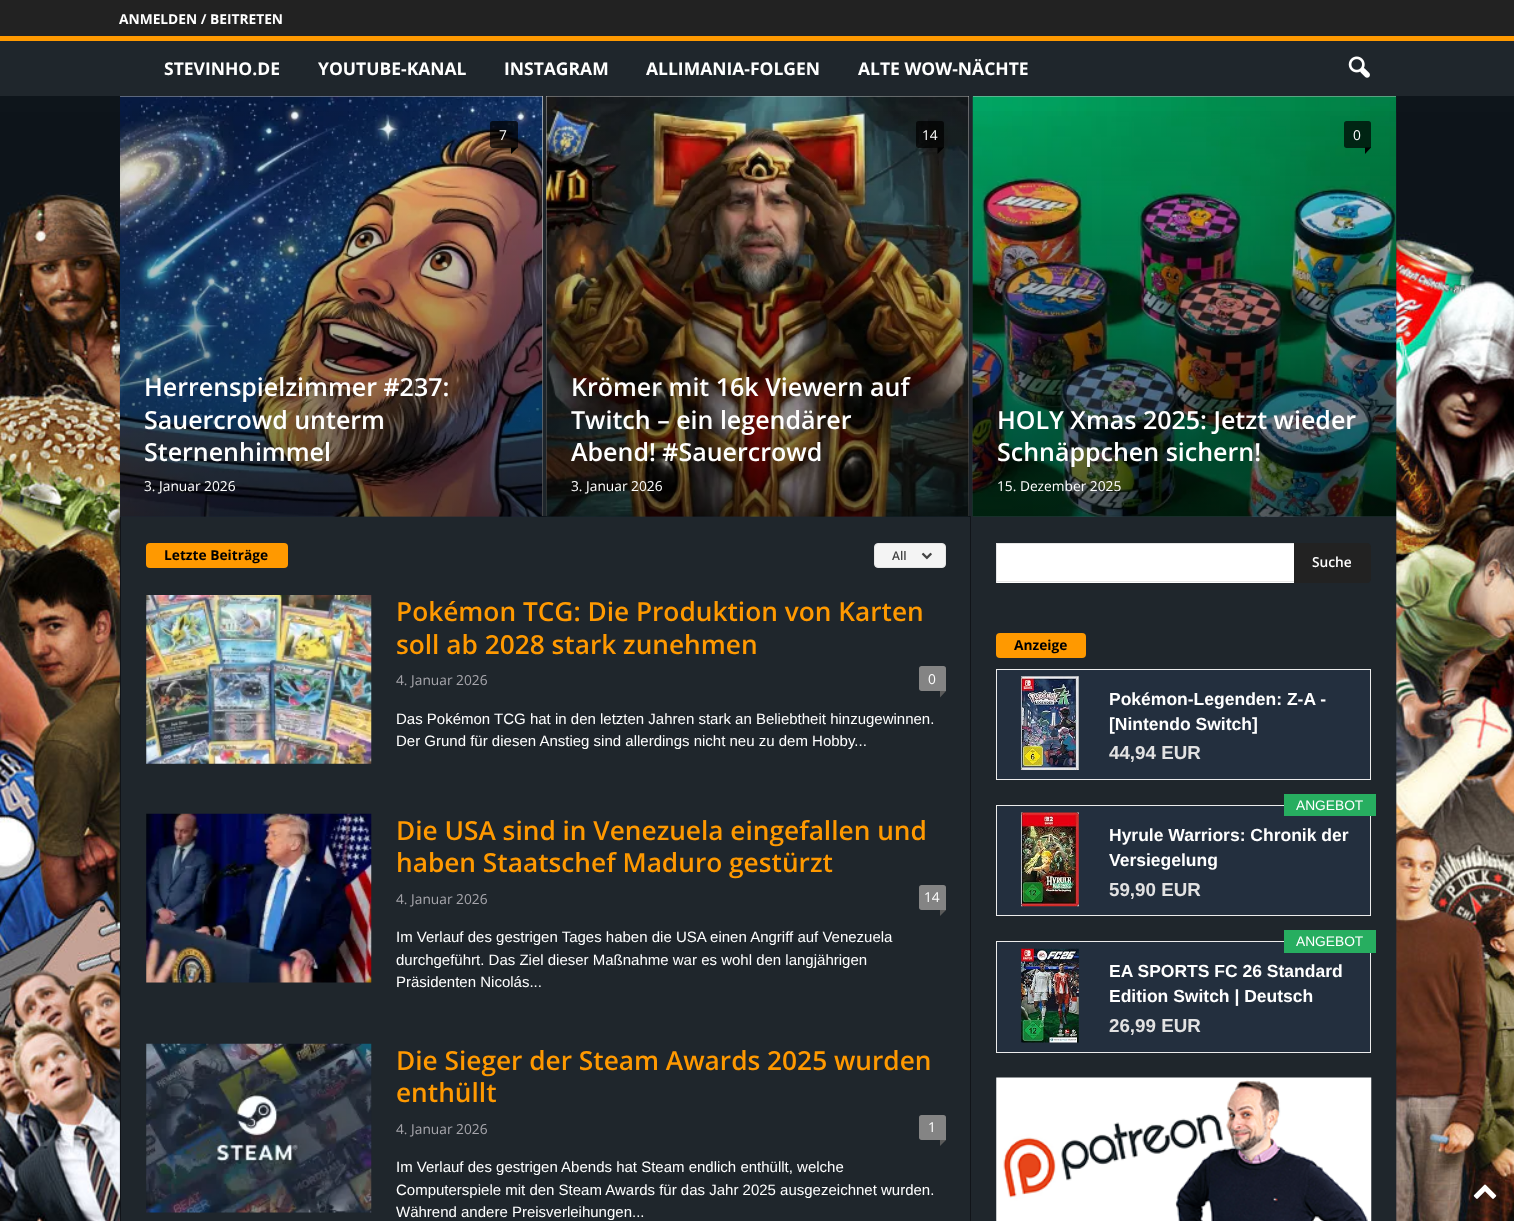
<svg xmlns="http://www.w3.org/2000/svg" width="1514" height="1221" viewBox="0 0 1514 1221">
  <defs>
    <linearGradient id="g1" gradientUnits="userSpaceOnUse" x1="331" y1="96" x2="331" y2="516"><stop offset="0" stop-color="rgb(0,0,0)" stop-opacity="0"/><stop offset="1" stop-color="rgb(0,0,0)" stop-opacity="0.6"/></linearGradient>
    <linearGradient id="g2" gradientUnits="userSpaceOnUse" x1="758" y1="96" x2="758" y2="516"><stop offset="0" stop-color="rgb(0,0,0)" stop-opacity="0"/><stop offset="1" stop-color="rgb(0,0,0)" stop-opacity="0.6"/></linearGradient>
    <linearGradient id="g3" gradientUnits="userSpaceOnUse" x1="1184" y1="96" x2="1184" y2="516"><stop offset="0" stop-color="rgb(0,0,0)" stop-opacity="0"/><stop offset="1" stop-color="rgb(0,0,0)" stop-opacity="0.6"/></linearGradient>
  </defs>
  <rect width="100%" height="100%" fill="rgb(14,21,27)"/>
  <image x="0" y="112" width="1514" height="1109" href="pic1.png"/>
  <rect x="0" y="0" width="1514" height="36" fill="rgb(34,34,34)"/>
  <text x="119" y="24" font-family="Open Sans" font-size="13.75" font-weight="bold" fill="rgb(255,255,255)">ANMELDEN / BEITRETEN</text>
  <rect x="0" y="41" width="1514" height="55" fill="rgb(31,38,44)"/>
  <rect x="0" y="36" width="1514" height="5" fill="rgb(255,153,0)"/>
  <g font-family="Open Sans" font-size="17.5" font-weight="bold" fill="rgb(255,255,255)">
    <text x="164" y="75">STEVINHO.DE</text>
    <text x="318" y="75">YOUTUBE-KANAL</text>
    <text x="504" y="75">INSTAGRAM</text>
    <text x="646" y="75">ALLIMANIA-FOLGEN</text>
    <text x="858" y="75">ALTE WOW-NÄCHTE</text>
  </g>
  <image x="1348" y="56" width="22" height="22" href="pic2.png"/>
  <rect x="543" y="96" width="430" height="17" fill="rgb(31,38,44)"/>
  <rect x="120" y="96" width="423" height="420" fill="rgb(204,204,204)"/>
  <rect x="121" y="516" width="1275" height="705" fill="rgb(31,38,44)"/>
  <rect x="120" y="516" width="1" height="705" fill="rgb(17,20,25)"/>
  <rect x="121" y="516" width="849" height="1" fill="rgb(14,21,27)"/>
  <image x="120" y="96" width="423" height="421" href="pic3.png"/>
  <rect x="120" y="111" width="423" height="405" fill="url(#g1)"/>
  <path d="M492.5 121H515.5C517 121 518 122 518 123.5V148H492.5C491 148 490 147 490 145.5V123.5C490 122 491 121 492.5 121Z" fill="rgba(0,0,0,0.7)"/>
  <text x="499" y="140" font-family="Open Sans" font-size="13.75" fill="rgb(255,255,255)">7</text>
  <path d="M511 147.5H517.5L511 154Z" fill="rgb(0,0,0)"/>
  <g font-family="Open Sans" font-size="25" font-weight="600" fill="rgb(255,255,255)">
    <text>
      <tspan x="144" y="396">Herrenspielzimmer #237:</tspan>
      <tspan x="144" y="429">Sauercrowd unterm</tspan>
      <tspan x="144" y="461">Sternenhimmel</tspan>
    </text>
  </g>
  <text x="144" y="491" font-family="Open Sans" font-size="13.75" fill="rgb(255,255,255)">3. Januar 2026</text>
  <rect x="546" y="96" width="423" height="420" fill="rgb(204,204,204)"/>
  <image x="546" y="96" width="423" height="421" href="pic4.png"/>
  <rect x="546" y="111" width="423" height="405" fill="url(#g2)"/>
  <path d="M918.5 121H941.5C943 121 944 122 944 123.5V148H918.5C917 148 916 147 916 145.5V123.5C916 122 917 121 918.5 121Z" fill="rgba(0,0,0,0.7)"/>
  <text x="922" y="140" font-family="Open Sans" font-size="13.75" fill="rgb(255,255,255)">14</text>
  <path d="M937.5 147.5H944L937.5 154Z" fill="rgb(0,0,0)"/>
  <g font-family="Open Sans" font-size="25" font-weight="600" fill="rgb(255,255,255)">
    <text>
      <tspan x="571" y="396">Krömer mit 16k Viewern auf</tspan>
      <tspan x="571" y="429">Twitch – ein legendärer</tspan>
      <tspan x="571" y="461">Abend! #Sauercrowd</tspan>
    </text>
  </g>
  <text x="571" y="491" font-family="Open Sans" font-size="13.75" fill="rgb(255,255,255)">3. Januar 2026</text>
  <rect x="973" y="96" width="423" height="1" fill="rgb(204,204,204)"/>
  <image x="972" y="96" width="425" height="421" href="pic5.png"/>
  <rect x="973" y="111" width="423" height="405" fill="url(#g3)"/>
  <path d="M1346.5 121H1368.5C1370 121 1371 122 1371 123.5V148H1346.5C1345 148 1344 147 1344 145.5V123.5C1344 122 1345 121 1346.5 121Z" fill="rgba(0,0,0,0.7)"/>
  <text x="1353" y="140" font-family="Open Sans" font-size="13.75" fill="rgb(255,255,255)">0</text>
  <path d="M1365 147.5H1371L1365 154Z" fill="rgb(0,0,0)"/>
  <g font-family="Open Sans" font-size="25" font-weight="600" fill="rgb(255,255,255)">
    <text>
      <tspan x="997" y="429">HOLY Xmas 2025: Jetzt wieder</tspan>
      <tspan x="997" y="461">Schnäppchen sichern!</tspan>
    </text>
  </g>
  <text x="997" y="491" font-family="Open Sans" font-size="13.75" fill="rgb(255,255,255)">15. Dezember 2025</text>
  <rect x="146" y="543" width="142" height="25" rx="4" fill="rgb(255,153,0)"/>
  <text x="164" y="560" font-family="Open Sans" font-size="13.75" font-weight="bold" fill="rgb(0,0,0)">Letzte Beiträge</text>
  <rect x="874.5" y="543.5" width="71" height="24" rx="3.5" fill="rgb(244,244,244)" stroke="rgb(230,230,230)"/>
  <text x="892" y="560" font-family="Open Sans" font-size="12" font-weight="600" fill="rgb(68,68,68)">All</text>
  <image x="921" y="552" width="11" height="8" href="pic6.png"/>
  <image x="146" y="595" width="226" height="169" href="pic7.png"/>
  <g font-family="Open Sans" font-size="26.25" font-weight="600" fill="rgb(255,153,0)">
    <text>
      <tspan x="396" y="621">Pokémon TCG: Die Produktion von Karten</tspan>
      <tspan x="396" y="654">soll ab 2028 stark zunehmen</tspan>
    </text>
  </g>
  <text x="396" y="685" font-family="Open Sans" font-size="13.75" fill="rgb(167,166,172)">4. Januar 2026</text>
  <path d="M921.5 666H943.5C945 666 946 667 946 668.5V691H921.5C920 691 919 690 919 688.5V668.5C919 667 920 666 921.5 666Z" fill="rgb(132,132,132)"/>
  <text x="928" y="684" font-family="Open Sans" font-size="13.75" fill="rgb(255,255,255)">0</text>
  <path d="M940 691H946L940 697.5Z" fill="rgb(91,91,91)"/>
  <g font-family="Liberation Sans" font-size="15" fill="rgb(255,255,255)">
    <text>
      <tspan x="396" y="724">Das Pokémon TCG hat in den letzten Jahren stark an Beliebtheit hinzugewinnen.</tspan>
      <tspan x="396" y="746">Der Grund für diesen Anstieg sind allerdings nicht neu zu dem Hobby...</tspan>
    </text>
  </g>
  <image x="146" y="813" width="226" height="170" href="pic8.png"/>
  <g font-family="Open Sans" font-size="26.25" font-weight="600" fill="rgb(255,153,0)">
    <text>
      <tspan x="396" y="840">Die USA sind in Venezuela eingefallen und</tspan>
      <tspan x="396" y="872">haben Staatschef Maduro gestürzt</tspan>
    </text>
  </g>
  <text x="396" y="904" font-family="Open Sans" font-size="13.75" fill="rgb(167,166,172)">4. Januar 2026</text>
  <path d="M921.5 885H943.5C945 885 946 886 946 887.5V910H921.5C920 910 919 909 919 907.5V887.5C919 886 920 885 921.5 885Z" fill="rgb(132,132,132)"/>
  <text x="924" y="902" font-family="Open Sans" font-size="13.75" fill="rgb(255,255,255)">14</text>
  <path d="M940 910H946L940 916Z" fill="rgb(91,91,91)"/>
  <g font-family="Liberation Sans" font-size="15" fill="rgb(255,255,255)">
    <text>
      <tspan x="396" y="942">Im Verlauf des gestrigen Tages haben die USA einen Angriff auf Venezuela</tspan>
      <tspan x="396" y="965">durchgeführt. Das Ziel dieser Maßnahme war es wohl den langjährigen</tspan>
      <tspan x="396" y="987">Präsidenten Nicolás...</tspan>
    </text>
  </g>
  <image x="146" y="1043" width="226" height="170" href="pic9.png"/>
  <g font-family="Open Sans" font-size="26.25" font-weight="600" fill="rgb(255,153,0)">
    <text>
      <tspan x="396" y="1070">Die Sieger der Steam Awards 2025 wurden</tspan>
      <tspan x="396" y="1102">enthüllt</tspan>
    </text>
  </g>
  <text x="396" y="1134" font-family="Open Sans" font-size="13.75" fill="rgb(167,166,172)">4. Januar 2026</text>
  <path d="M921.5 1115H943.5C945 1115 946 1116 946 1117.5V1140H921.5C920 1140 919 1139 919 1137.5V1117.5C919 1116 920 1115 921.5 1115Z" fill="rgb(132,132,132)"/>
  <text x="928" y="1132" font-family="Open Sans" font-size="13.75" fill="rgb(255,255,255)">1</text>
  <path d="M940 1140H946L940 1146Z" fill="rgb(91,91,91)"/>
  <g font-family="Liberation Sans" font-size="15" fill="rgb(255,255,255)">
    <text>
      <tspan x="396" y="1172">Im Verlauf des gestrigen Abends hat Steam endlich enthüllt, welche</tspan>
      <tspan x="396" y="1195">Computerspiele mit den Steam Awards für das Jahr 2025 ausgezeichnet wurden.</tspan>
      <tspan x="396" y="1217">Während andere Preisverleihungen...</tspan>
    </text>
  </g>
  <rect x="970" y="516" width="1" height="705" fill="rgb(17,20,25)"/>
  <rect x="997" y="544" width="297" height="39" fill="rgb(255,255,255)"/>
  <rect x="996" y="543" width="298" height="1" fill="rgb(230,230,230)"/>
  <rect x="996" y="581" width="298" height="1" fill="rgb(230,230,230)"/>
  <rect x="996" y="543" width="1" height="40" fill="rgb(230,230,230)"/>
  <path d="M1294 543H1367C1369 543 1371 545 1371 547V579C1371 581 1369 583 1367 583H1294Z" fill="rgb(34,34,34)"/>
  <text x="1312" y="567" font-family="Open Sans" font-size="13.75" font-weight="600" fill="rgb(255,255,255)">Suche</text>
  <rect x="996" y="633" width="90" height="25" rx="4" fill="rgb(255,153,0)"/>
  <text x="1014" y="650" font-family="Open Sans" font-size="13.75" font-weight="bold" fill="rgb(0,0,0)">Anzeige</text>
  <rect x="996.5" y="669.5" width="374" height="110" fill="rgb(35,47,62)" stroke="rgb(236,236,236)"/>
  <image x="1021" y="676" width="58" height="94" href="pic10.png"/>
  <g font-family="Liberation Sans" font-size="17.5" font-weight="bold" fill="rgb(255,255,255)">
    <text>
      <tspan x="1109" y="705">Pokémon-Legenden: Z-A -</tspan>
      <tspan x="1109" y="730">[Nintendo Switch]</tspan>
    </text>
  </g>
  <text x="1109" y="759" font-family="Liberation Sans" font-size="18.75" font-weight="bold" fill="rgb(226,226,226)">44,94 EUR</text>
  <rect x="996.5" y="805.5" width="374" height="110" fill="rgb(35,47,62)" stroke="rgb(236,236,236)"/>
  <rect x="1284" y="794" width="92" height="22" fill="rgb(39,174,96)"/>
  <text x="1296" y="810" font-family="Liberation Sans" font-size="13.75" fill="rgb(255,255,255)">ANGEBOT</text>
  <image x="1021" y="812" width="58" height="95" href="pic11.png"/>
  <g font-family="Liberation Sans" font-size="17.5" font-weight="bold" fill="rgb(255,255,255)">
    <text>
      <tspan x="1109" y="841">Hyrule Warriors: Chronik der</tspan>
      <tspan x="1109" y="866">Versiegelung</tspan>
    </text>
  </g>
  <text x="1109" y="896" font-family="Liberation Sans" font-size="18.75" font-weight="bold" fill="rgb(226,226,226)">59,90 EUR</text>
  <rect x="996.5" y="941.5" width="374" height="111" fill="rgb(35,47,62)" stroke="rgb(236,236,236)"/>
  <rect x="1284" y="930" width="92" height="23" fill="rgb(39,174,96)"/>
  <text x="1296" y="946" font-family="Liberation Sans" font-size="13.75" fill="rgb(255,255,255)">ANGEBOT</text>
  <image x="1021" y="948" width="58" height="95" href="pic12.png"/>
  <g font-family="Liberation Sans" font-size="17.5" font-weight="bold" fill="rgb(255,255,255)">
    <text>
      <tspan x="1109" y="977">EA SPORTS FC 26 Standard</tspan>
      <tspan x="1109" y="1002">Edition Switch | Deutsch</tspan>
    </text>
  </g>
  <text x="1109" y="1032" font-family="Liberation Sans" font-size="18.75" font-weight="bold" fill="rgb(226,226,226)">26,99 EUR</text>
  <image x="996" y="1077" width="376" height="144" href="pic13.png"/>
  <image x="1473" y="1184" width="24" height="15" href="pic14.png"/>
</svg>
